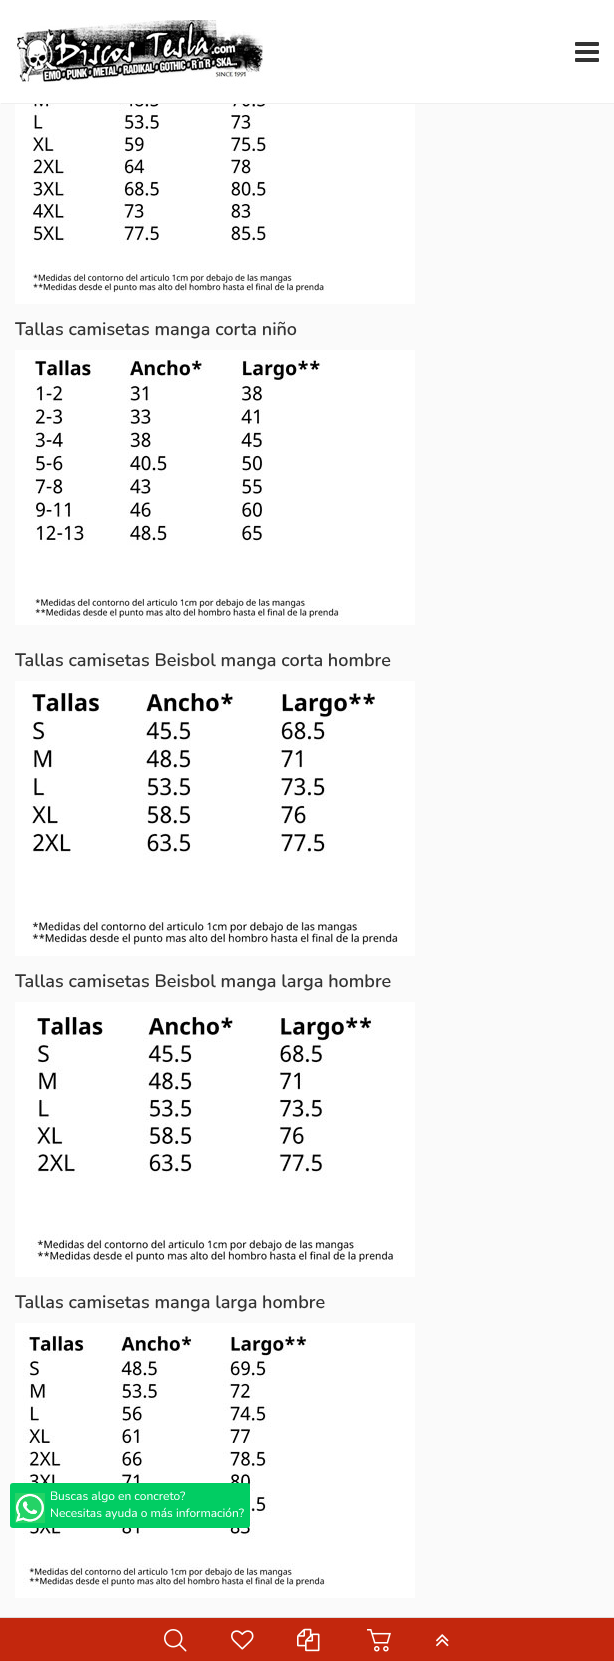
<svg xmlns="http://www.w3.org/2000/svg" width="614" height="1661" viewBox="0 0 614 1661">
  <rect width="100%" height="100%" fill="rgb(250,250,250)"/>
  <image x="15" y="103" width="400" height="201" href="pic3.png"/>
  <rect x="1" y="1" width="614" height="103" fill="rgb(239,239,239)" filter="blur(0.5px)"/>
  <rect x="0" y="0" width="614" height="103" fill="rgb(255,255,255)"/>
  <image x="15" y="20" width="248" height="64" href="pic1.png"/>
  <image x="575" y="42" width="24" height="20" href="pic2.png"/>
  <text x="15" y="335" font-family="Nunito" font-size="18" font-weight="600" fill="rgb(51,51,51)">Tallas camisetas manga corta niño</text>
  <image x="15" y="350" width="400" height="275" href="pic4.png"/>
  <text x="15" y="666" font-family="Nunito" font-size="18" font-weight="600" fill="rgb(51,51,51)">Tallas camisetas Beisbol manga corta hombre</text>
  <image x="15" y="681" width="400" height="275" href="pic5.png"/>
  <text x="15" y="987" font-family="Nunito" font-size="18" font-weight="600" fill="rgb(51,51,51)">Tallas camisetas Beisbol manga larga hombre</text>
  <image x="15" y="1002" width="400" height="275" href="pic6.png"/>
  <text x="15" y="1308" font-family="Nunito" font-size="18" font-weight="600" fill="rgb(51,51,51)">Tallas camisetas manga larga hombre</text>
  <image x="15" y="1323" width="400" height="275" href="pic7.png"/>
  <rect x="0" y="1618" width="614" height="43" fill="rgb(195,39,13)"/>
  <rect x="0" y="1617" width="614" height="1" fill="rgb(221,221,221)"/>
  <rect x="10" y="1483" width="240" height="45" rx="3" fill="rgb(1,205,99)"/>
  <image x="15" y="1493" width="30" height="30" href="pic8.png"/>
  <g font-family="Nunito" font-size="12" fill="rgb(255,255,255)">
    <text>
      <tspan x="50" y="1500">Buscas algo en concreto?</tspan>
      <tspan x="50" y="1517">Necesitas ayuda o más información?</tspan>
    </text>
  </g>
  <image x="367" y="1629" width="24" height="23" href="pic9.png"/>
  <image x="164" y="1629" width="23" height="23" href="pic10.png"/>
  <image x="231" y="1630" width="23" height="20" href="pic11.png"/>
  <image x="297" y="1628" width="23" height="24" href="pic12.png"/>
  <image x="436" y="1634" width="13" height="13" href="pic13.png"/>
</svg>
